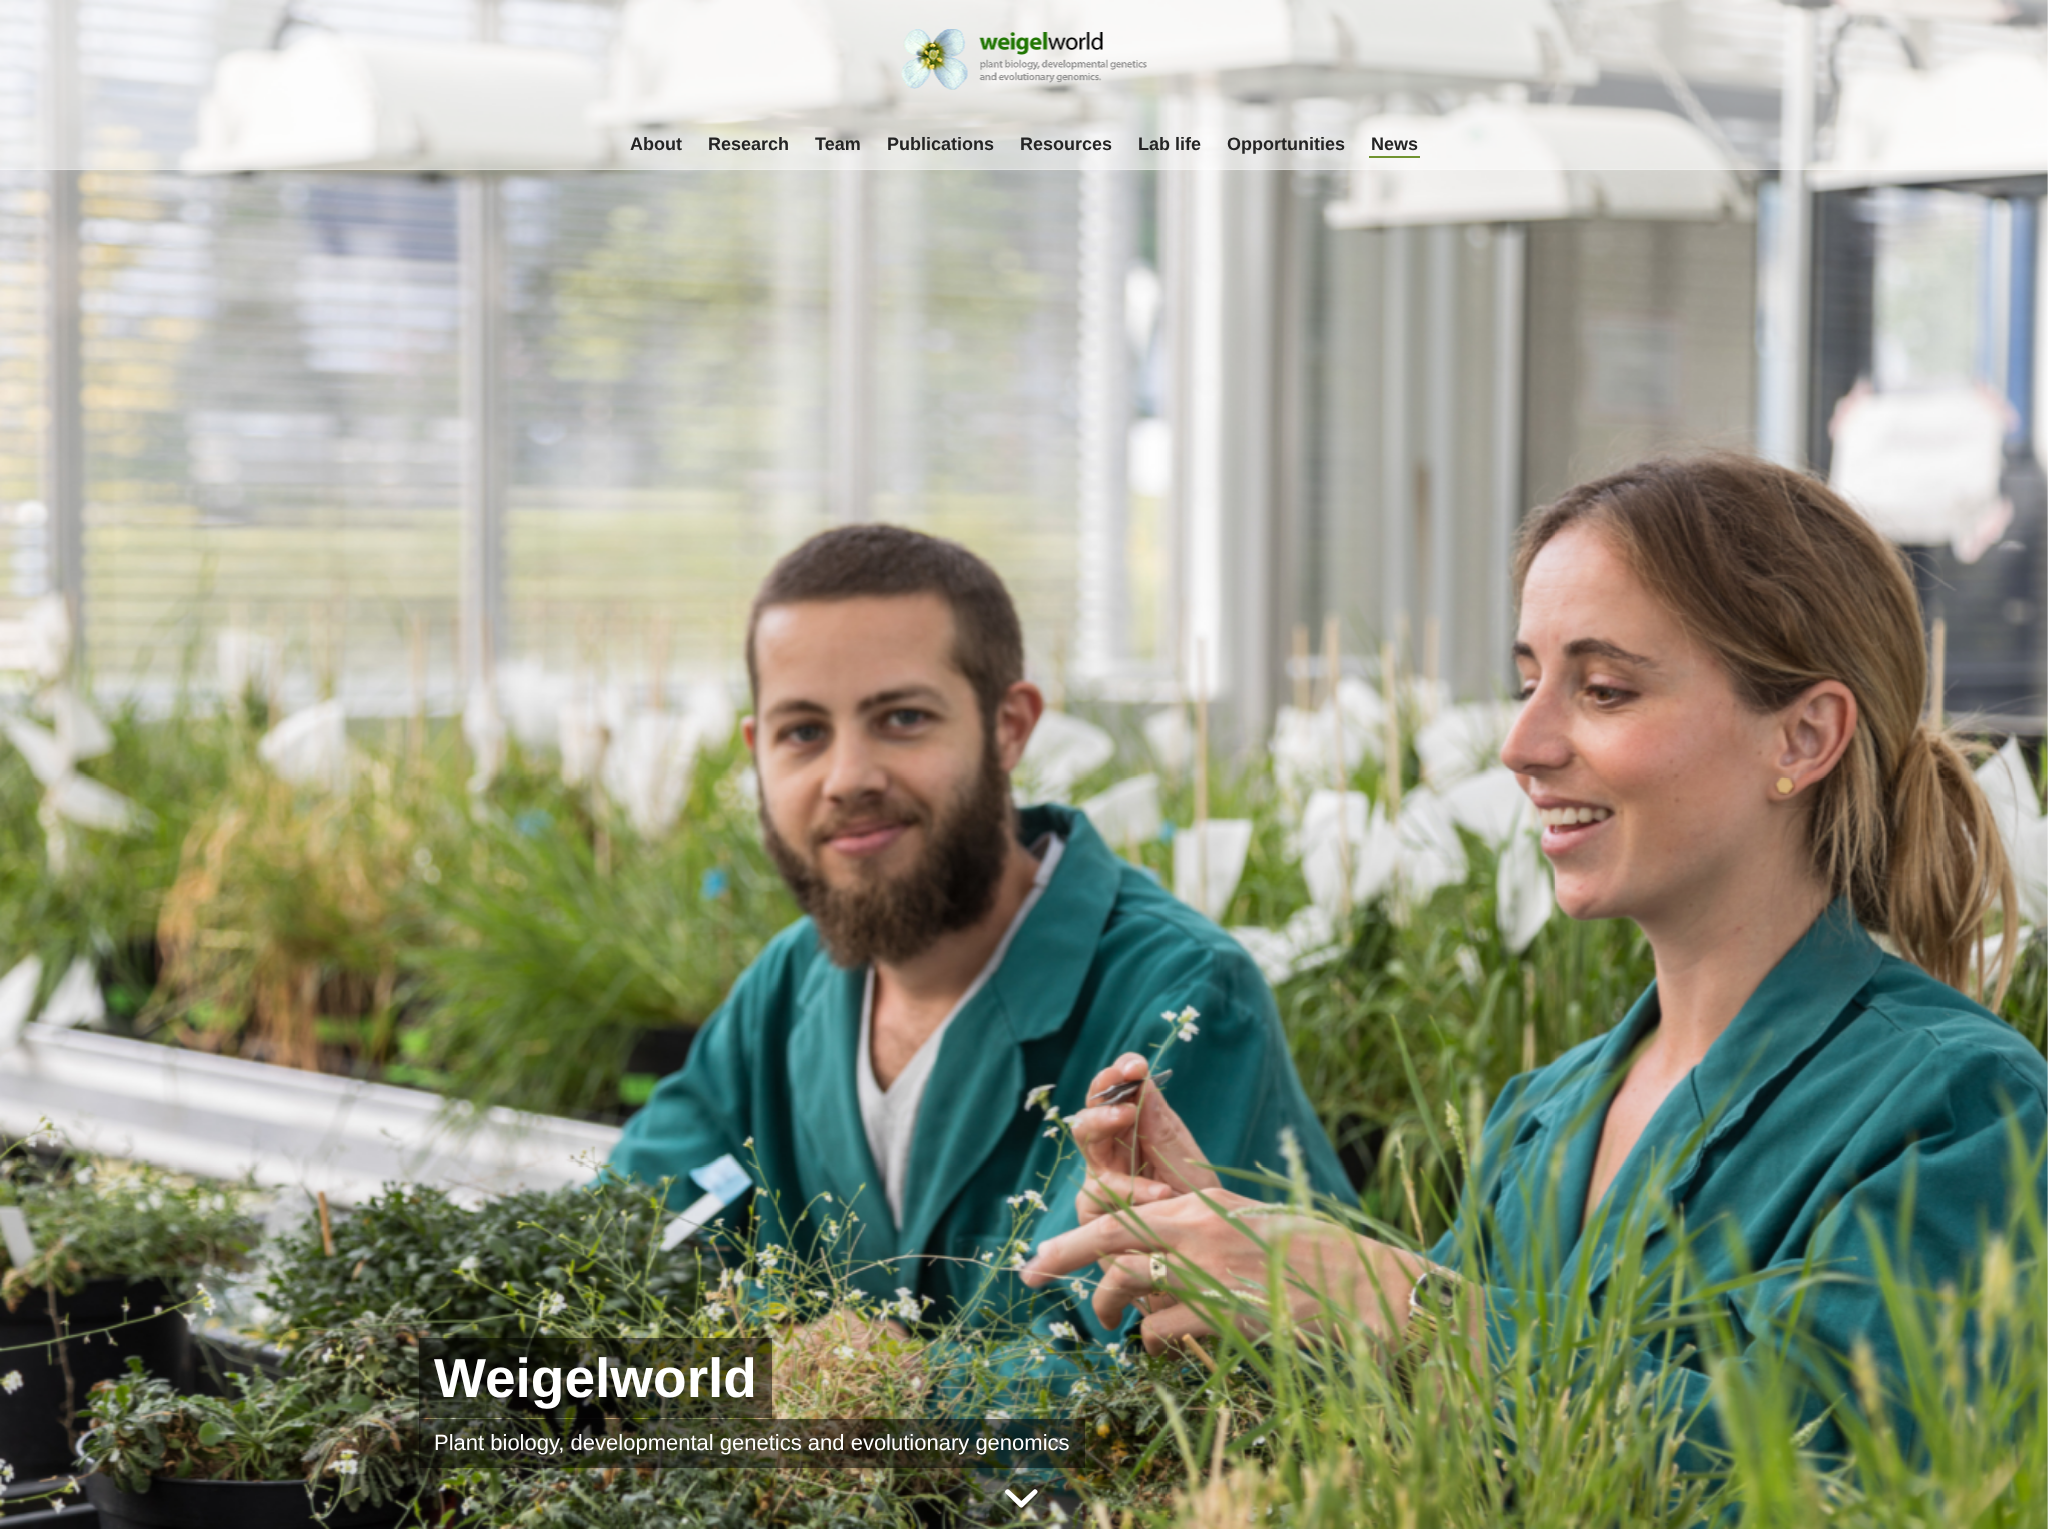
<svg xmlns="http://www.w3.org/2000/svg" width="2048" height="1529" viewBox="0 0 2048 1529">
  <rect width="100%" height="100%" fill="rgb(255,255,255)"/>
  <image x="0" y="0" width="2048" height="1529" href="pic2.png"/>
  <rect x="0" y="0" width="2048" height="170" fill="rgba(255,255,255,0.5)"/>
  <rect x="0" y="169" width="2048" height="1" fill="rgba(255,255,255,0.25)"/>
  <image x="901" y="29" width="246" height="61" href="pic1.png"/>
  <g font-family="Liberation Sans" font-size="18" font-weight="bold" fill="rgb(36,36,36)">
    <text x="630" y="150">About</text>
    <text x="708" y="150">Research</text>
    <text x="815" y="150">Team</text>
    <text x="887" y="150">Publications</text>
    <text x="1020" y="150">Resources</text>
    <text x="1138" y="150">Lab life</text>
    <text x="1227" y="150">Opportunities</text>
    <text x="1371" y="150">News</text>
  </g>
  <rect x="1369" y="156" width="51" height="2" fill="rgb(113,148,48)"/>
  <rect x="419" y="1338" width="353" height="80" fill="rgba(0,0,0,0.5)"/>
  <text x="434" y="1397" font-family="Liberation Sans" font-size="55" font-weight="bold" fill="rgb(255,255,255)">Weigelworld</text>
  <rect x="419" y="1419" width="666" height="49" fill="rgba(0,0,0,0.5)"/>
  <text x="434" y="1450" font-family="Liberation Sans" font-size="22" fill="rgb(255,255,255)">Plant biology, developmental genetics and evolutionary genomics</text>
  <image x="1005" y="1489" width="33" height="19" href="pic3.png"/>
</svg>
